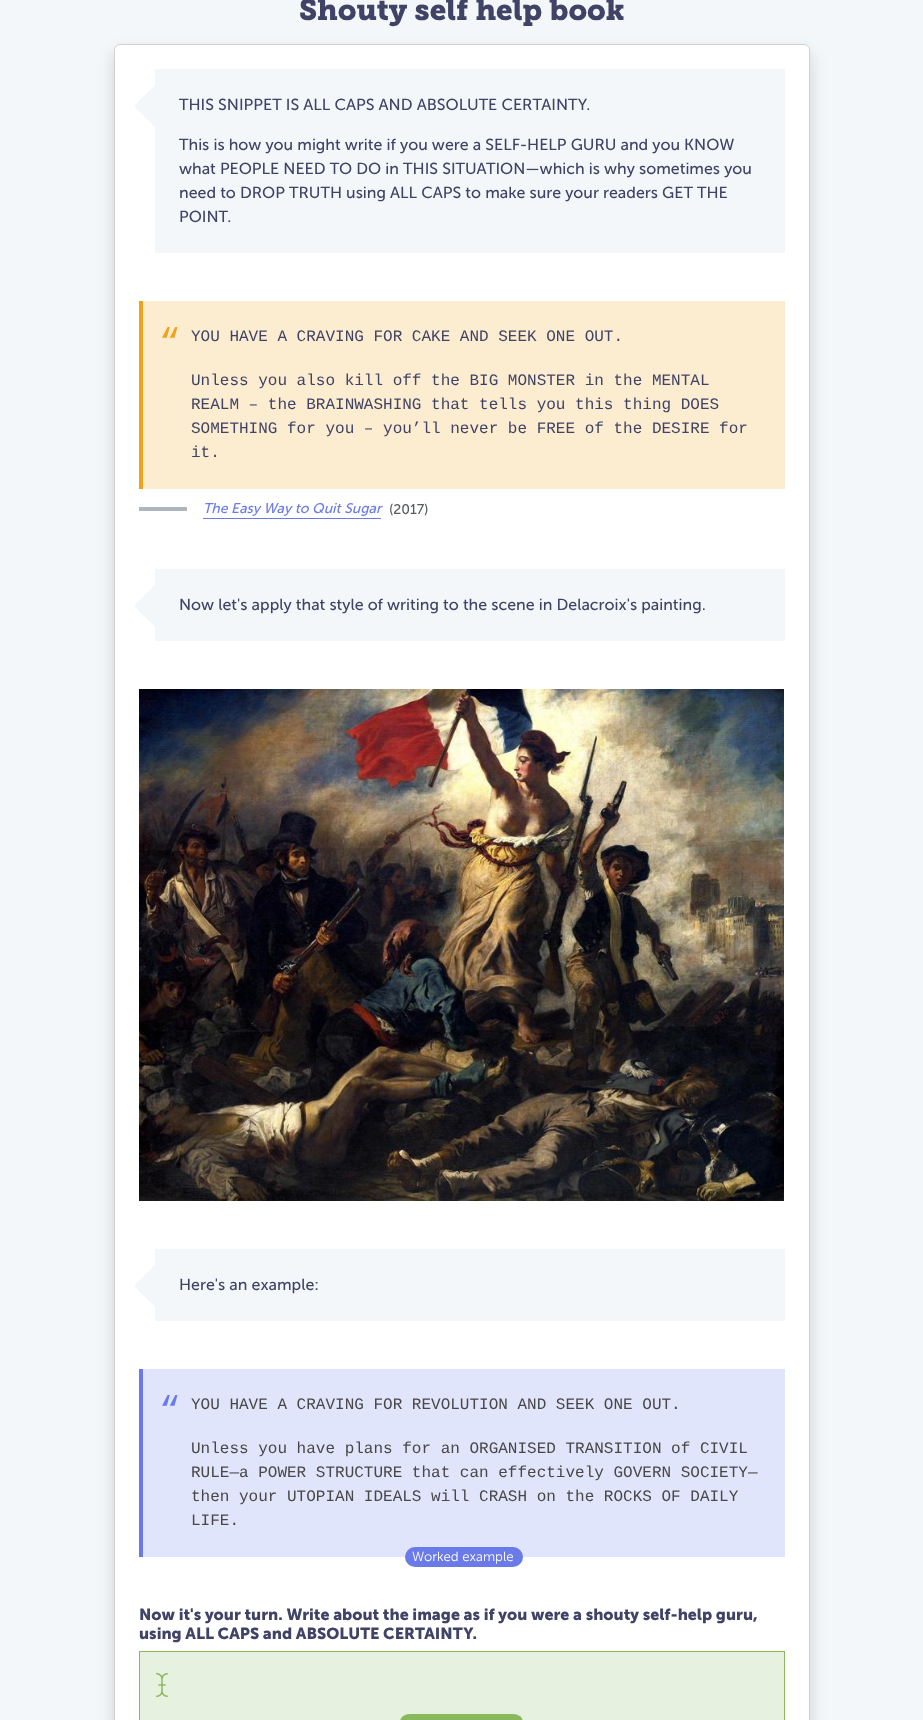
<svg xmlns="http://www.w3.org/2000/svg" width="923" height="1720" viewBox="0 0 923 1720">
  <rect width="100%" height="100%" fill="rgb(244,247,249)"/>
  <text x="299" y="20" font-family="'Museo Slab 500'" font-size="29.5" font-weight="bold" fill="rgb(64,67,102)">Shouty self help book</text>
  <rect x="114" y="52" width="696" height="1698" rx="6" fill="rgba(0,0,0,0.15)" filter="blur(8px)"/>
  <rect x="114" y="44" width="696" height="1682" rx="6" fill="rgb(255,255,255)"/>
  <rect x="114.5" y="44.5" width="695" height="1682" rx="5.5" fill="none" stroke="rgba(0,0,0,0.18)"/>
  <rect x="155" y="69" width="630" height="184" fill="rgb(244,247,249)"/>
  <path d="M159 81V131L134 106Z" fill="rgb(244,247,249)"/>
  <g font-family="'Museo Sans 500'" font-size="16" fill="rgb(64,67,102)">
    <text x="179" y="110">THIS SNIPPET IS ALL CAPS AND ABSOLUTE CERTAINTY.</text>
    <text>
      <tspan x="179" y="150">This is how you might write if you were a SELF-HELP GURU and you KNOW</tspan>
      <tspan x="179" y="174">what PEOPLE NEED TO DO in THIS SITUATION—which is why sometimes you</tspan>
      <tspan x="179" y="198">need to DROP TRUTH using ALL CAPS to make sure your readers GET THE</tspan>
      <tspan x="179" y="222">POINT.</tspan>
    </text>
  </g>
  <rect x="143" y="301" width="642" height="188" fill="rgb(252,237,209)"/>
  <rect x="139" y="301" width="4" height="188" fill="rgb(240,163,26)"/>
  <text x="159" y="353" font-family="Liberation Mono" font-size="36" fill="rgb(240,163,26)">“</text>
  <g font-family="Liberation Mono" font-size="16" fill="rgb(64,67,102)">
    <text x="191" y="341">YOU HAVE A CRAVING FOR CAKE AND SEEK ONE OUT.</text>
    <text>
      <tspan x="191" y="385">Unless you also kill off the BIG MONSTER in the MENTAL</tspan>
      <tspan x="191" y="409">REALM – the BRAINWASHING that tells you this thing DOES</tspan>
      <tspan x="191" y="433">SOMETHING for you – you’ll never be FREE of the DESIRE for</tspan>
      <tspan x="191" y="457">it.</tspan>
    </text>
  </g>
  <rect x="139" y="507" width="48" height="4" fill="rgb(173,181,189)"/>
  <text x="203" y="513" font-family="'Museo Sans 500'" font-size="14" font-style="italic" fill="rgb(106,123,233)">The Easy Way to Quit Sugar</text>
  <rect x="203" y="518" width="178" height="1" fill="rgb(106,123,233)"/>
  <text x="389" y="514" font-family="'Museo Sans 500'" font-size="14" fill="rgb(89,92,95)">(2017)</text>
  <rect x="155" y="569" width="630" height="72" fill="rgb(244,247,249)"/>
  <path d="M159 581V631L134 606Z" fill="rgb(244,247,249)"/>
  <text x="179" y="610" font-family="'Museo Sans 500'" font-size="16" fill="rgb(64,67,102)">Now let's apply that style of writing to the scene in Delacroix's painting.</text>
  <image x="139" y="689" width="645" height="512" href="pic1.png"/>
  <rect x="155" y="1249" width="630" height="72" fill="rgb(244,247,249)"/>
  <path d="M159 1261V1311L134 1286Z" fill="rgb(244,247,249)"/>
  <text x="179" y="1290" font-family="'Museo Sans 500'" font-size="16" fill="rgb(64,67,102)">Here's an example:</text>
  <rect x="143" y="1369" width="642" height="188" fill="rgb(225,229,251)"/>
  <rect x="139" y="1369" width="4" height="188" fill="rgb(106,123,233)"/>
  <text x="159" y="1421" font-family="Liberation Mono" font-size="36" fill="rgb(106,123,233)">“</text>
  <g font-family="Liberation Mono" font-size="16" fill="rgb(72,72,72)">
    <text x="191" y="1409">YOU HAVE A CRAVING FOR REVOLUTION AND SEEK ONE OUT.</text>
    <text>
      <tspan x="191" y="1453">Unless you have plans for an ORGANISED TRANSITION of CIVIL</tspan>
      <tspan x="191" y="1477">RULE—a POWER STRUCTURE that can effectively GOVERN SOCIETY—</tspan>
      <tspan x="191" y="1501">then your UTOPIAN IDEALS will CRASH on the ROCKS OF DAILY</tspan>
      <tspan x="191" y="1525">LIFE.</tspan>
    </text>
  </g>
  <rect x="405" y="1547" width="118" height="20" rx="10" fill="rgb(106,123,233)"/>
  <text x="412" y="1561" font-family="'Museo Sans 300'" font-size="13.25" font-weight="300" fill="rgb(255,255,255)">Worked example</text>
  <g font-family="'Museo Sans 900'" font-size="16" font-weight="bold" fill="rgb(64,67,102)">
    <text>
      <tspan x="139" y="1620">Now it's your turn. Write about the image as if you were a shouty self-help guru,</tspan>
      <tspan x="139" y="1639">using ALL CAPS and ABSOLUTE CERTAINTY.</tspan>
    </text>
  </g>
  <rect x="139.5" y="1651.5" width="645" height="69" fill="none" stroke="rgb(137,184,93)"/>
  <rect x="140" y="1652" width="644" height="68" fill="rgb(231,241,223)"/>
  <image x="156" y="1673" width="12" height="24" href="pic2.png"/>
  <rect x="400" y="1714" width="123" height="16" rx="10" fill="rgb(137,184,93)"/>
</svg>
